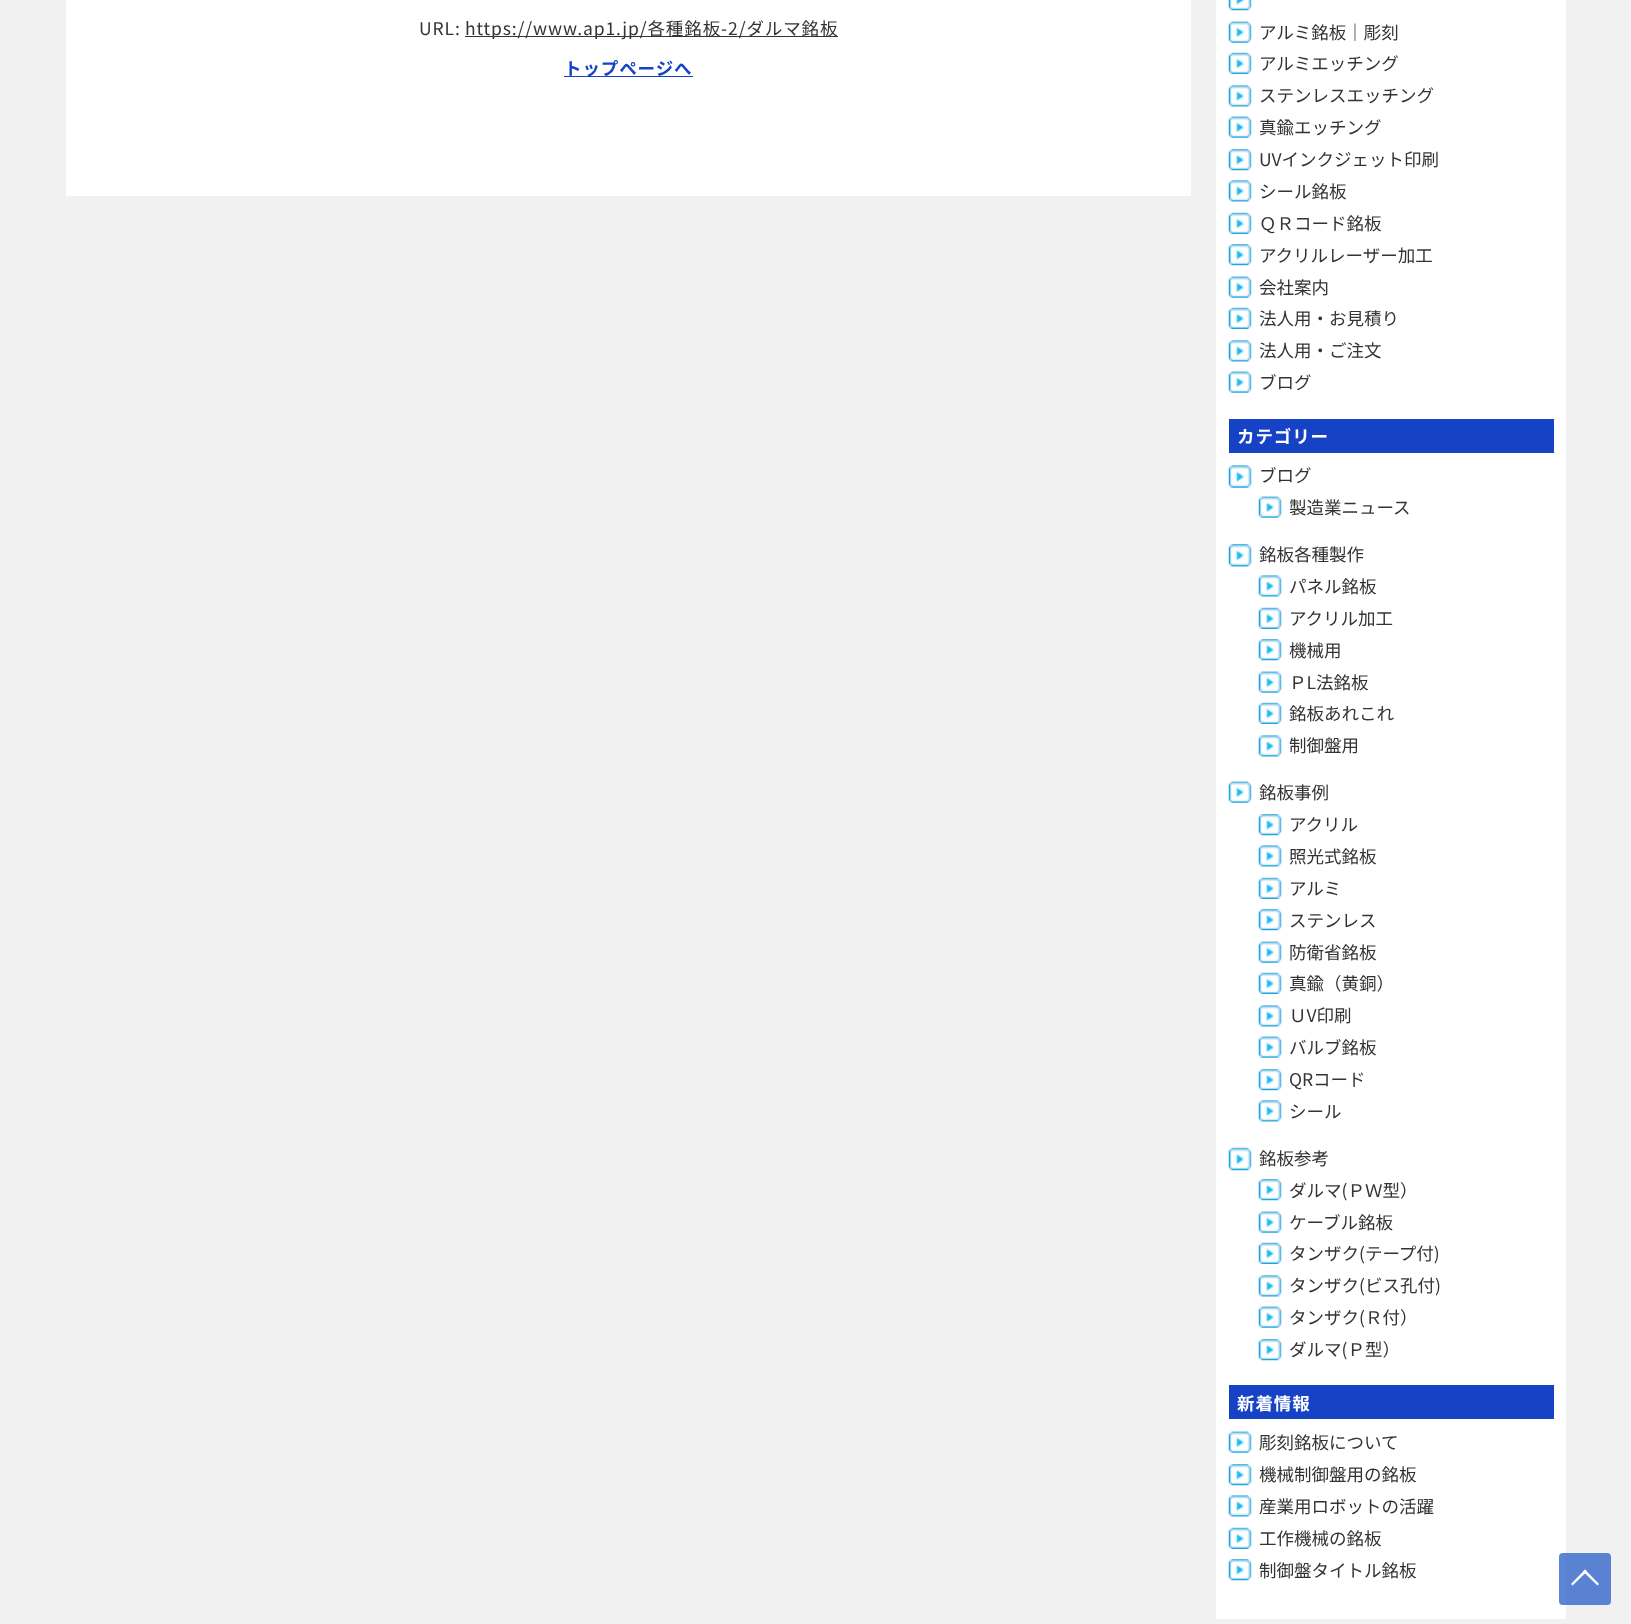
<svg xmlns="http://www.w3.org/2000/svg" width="1631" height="1624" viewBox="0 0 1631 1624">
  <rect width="100%" height="100%" fill="rgb(241,241,241)"/>
  <rect x="66" y="0" width="1125" height="196" fill="rgb(255,255,255)"/>
  <text x="419" y="35" font-family="Noto Sans JP" font-size="17.5" letter-spacing="0.9" fill="rgb(51,51,51)">URL:</text>
  <rect x="465" y="36" width="373" height="1" fill="rgb(51,51,51)"/>
  <text x="465" y="35" font-family="Noto Sans JP" font-size="17.5" letter-spacing="0.9" fill="rgb(51,51,51)">https://www.ap1.jp/各種銘板-2/ダルマ銘板</text>
  <rect x="564" y="76" width="129" height="1" fill="rgb(22,66,197)"/>
  <text x="564" y="75" font-family="Noto Sans JP" font-size="17.5" font-weight="bold" letter-spacing="0.9" fill="rgb(22,66,197)">トップページへ</text>
  <rect x="1216" y="0" width="350" height="1619" fill="rgb(255,255,255)"/>
  <image x="1228" y="0" width="24" height="11" href="pic1.png"/>
  <image x="1228" y="21" width="24" height="22" href="pic2.png"/>
  <text x="1259" y="39" font-family="Noto Sans JP" font-size="17.5" fill="rgb(51,51,51)">アルミ銘板｜彫刻</text>
  <image x="1228" y="52" width="24" height="22" href="pic3.png"/>
  <text x="1259" y="70" font-family="Noto Sans JP" font-size="17.5" fill="rgb(51,51,51)">アルミエッチング</text>
  <image x="1228" y="85" width="24" height="22" href="pic4.png"/>
  <text x="1259" y="102" font-family="Noto Sans JP" font-size="17.5" fill="rgb(51,51,51)">ステンレスエッチング</text>
  <image x="1228" y="116" width="24" height="22" href="pic2.png"/>
  <text x="1259" y="134" font-family="Noto Sans JP" font-size="17.5" fill="rgb(51,51,51)">真鍮エッチング</text>
  <image x="1228" y="149" width="24" height="22" href="pic5.png"/>
  <text x="1259" y="166" font-family="Noto Sans JP" font-size="17.5" fill="rgb(51,51,51)">UVインクジェット印刷</text>
  <image x="1228" y="180" width="24" height="22" href="pic4.png"/>
  <text x="1259" y="198" font-family="Noto Sans JP" font-size="17.5" fill="rgb(51,51,51)">シール銘板</text>
  <image x="1228" y="212" width="24" height="22" href="pic3.png"/>
  <text x="1259" y="230" font-family="Noto Sans JP" font-size="17.5" fill="rgb(51,51,51)">ＱＲコード銘板</text>
  <image x="1228" y="244" width="24" height="22" href="pic5.png"/>
  <text x="1259" y="262" font-family="Noto Sans JP" font-size="17.5" fill="rgb(51,51,51)">アクリルレーザー加工</text>
  <image x="1228" y="276" width="24" height="22" href="pic2.png"/>
  <text x="1259" y="294" font-family="Noto Sans JP" font-size="17.5" fill="rgb(51,51,51)">会社案内</text>
  <image x="1228" y="307" width="24" height="22" href="pic3.png"/>
  <text x="1259" y="325" font-family="Noto Sans JP" font-size="17.5" fill="rgb(51,51,51)">法人用・お見積り</text>
  <image x="1228" y="340" width="24" height="22" href="pic4.png"/>
  <text x="1259" y="357" font-family="Noto Sans JP" font-size="17.5" fill="rgb(51,51,51)">法人用・ご注文</text>
  <image x="1228" y="371" width="24" height="22" href="pic2.png"/>
  <text x="1259" y="389" font-family="Noto Sans JP" font-size="17.5" fill="rgb(51,51,51)">ブログ</text>
  <rect x="1229" y="419" width="325" height="34" fill="rgb(22,66,197)"/>
  <text x="1237" y="443" font-family="Noto Sans JP" font-size="17.5" font-weight="bold" letter-spacing="0.9" fill="rgb(255,255,255)">カテゴリー</text>
  <image x="1228" y="465" width="24" height="23" href="pic6.png"/>
  <text x="1259" y="482" font-family="Noto Sans JP" font-size="17.5" fill="rgb(51,51,51)">ブログ</text>
  <image x="1258" y="496" width="24" height="22" href="pic2.png"/>
  <text x="1289" y="514" font-family="Noto Sans JP" font-size="17.5" fill="rgb(51,51,51)">製造業ニュース</text>
  <image x="1228" y="544" width="24" height="23" href="pic7.png"/>
  <text x="1259" y="561" font-family="Noto Sans JP" font-size="17.5" fill="rgb(51,51,51)">銘板各種製作</text>
  <image x="1258" y="575" width="24" height="22" href="pic4.png"/>
  <text x="1289" y="593" font-family="Noto Sans JP" font-size="17.5" fill="rgb(51,51,51)">パネル銘板</text>
  <image x="1258" y="607" width="24" height="22" href="pic3.png"/>
  <text x="1289" y="625" font-family="Noto Sans JP" font-size="17.5" fill="rgb(51,51,51)">アクリル加工</text>
  <image x="1258" y="639" width="24" height="22" href="pic5.png"/>
  <text x="1289" y="657" font-family="Noto Sans JP" font-size="17.5" fill="rgb(51,51,51)">機械用</text>
  <image x="1258" y="671" width="24" height="22" href="pic2.png"/>
  <text x="1289" y="689" font-family="Noto Sans JP" font-size="17.5" fill="rgb(51,51,51)">ＰL法銘板</text>
  <image x="1258" y="702" width="24" height="22" href="pic3.png"/>
  <text x="1289" y="720" font-family="Noto Sans JP" font-size="17.5" fill="rgb(51,51,51)">銘板あれこれ</text>
  <image x="1258" y="735" width="24" height="22" href="pic4.png"/>
  <text x="1289" y="752" font-family="Noto Sans JP" font-size="17.5" fill="rgb(51,51,51)">制御盤用</text>
  <image x="1228" y="781" width="24" height="22" href="pic2.png"/>
  <text x="1259" y="799" font-family="Noto Sans JP" font-size="17.5" fill="rgb(51,51,51)">銘板事例</text>
  <image x="1258" y="814" width="24" height="22" href="pic5.png"/>
  <text x="1289" y="831" font-family="Noto Sans JP" font-size="17.5" fill="rgb(51,51,51)">アクリル</text>
  <image x="1258" y="845" width="24" height="22" href="pic4.png"/>
  <text x="1289" y="863" font-family="Noto Sans JP" font-size="17.5" fill="rgb(51,51,51)">照光式銘板</text>
  <image x="1258" y="877" width="24" height="22" href="pic3.png"/>
  <text x="1289" y="895" font-family="Noto Sans JP" font-size="17.5" fill="rgb(51,51,51)">アルミ</text>
  <image x="1258" y="909" width="24" height="22" href="pic5.png"/>
  <text x="1289" y="927" font-family="Noto Sans JP" font-size="17.5" fill="rgb(51,51,51)">ステンレス</text>
  <image x="1258" y="941" width="24" height="22" href="pic2.png"/>
  <text x="1289" y="959" font-family="Noto Sans JP" font-size="17.5" fill="rgb(51,51,51)">防衛省銘板</text>
  <image x="1258" y="972" width="24" height="22" href="pic3.png"/>
  <text x="1289" y="990" font-family="Noto Sans JP" font-size="17.5" fill="rgb(51,51,51)">真鍮（黄銅）</text>
  <image x="1258" y="1005" width="24" height="22" href="pic4.png"/>
  <text x="1289" y="1022" font-family="Noto Sans JP" font-size="17.5" fill="rgb(51,51,51)">ＵV印刷</text>
  <image x="1258" y="1036" width="24" height="22" href="pic2.png"/>
  <text x="1289" y="1054" font-family="Noto Sans JP" font-size="17.5" fill="rgb(51,51,51)">バルブ銘板</text>
  <image x="1258" y="1069" width="24" height="22" href="pic5.png"/>
  <text x="1289" y="1086" font-family="Noto Sans JP" font-size="17.5" fill="rgb(51,51,51)">QRコード</text>
  <image x="1258" y="1100" width="24" height="22" href="pic4.png"/>
  <text x="1289" y="1118" font-family="Noto Sans JP" font-size="17.5" fill="rgb(51,51,51)">シール</text>
  <image x="1228" y="1147" width="24" height="24" href="pic8.png"/>
  <text x="1259" y="1165" font-family="Noto Sans JP" font-size="17.5" fill="rgb(51,51,51)">銘板参考</text>
  <image x="1258" y="1179" width="24" height="22" href="pic5.png"/>
  <text x="1289" y="1197" font-family="Noto Sans JP" font-size="17.5" fill="rgb(51,51,51)">ダルマ(ＰＷ型）</text>
  <image x="1258" y="1211" width="24" height="22" href="pic2.png"/>
  <text x="1289" y="1229" font-family="Noto Sans JP" font-size="17.5" fill="rgb(51,51,51)">ケーブル銘板</text>
  <image x="1258" y="1242" width="24" height="22" href="pic3.png"/>
  <text x="1289" y="1260" font-family="Noto Sans JP" font-size="17.5" fill="rgb(51,51,51)">タンザク(テープ付)</text>
  <image x="1258" y="1275" width="24" height="22" href="pic4.png"/>
  <text x="1289" y="1292" font-family="Noto Sans JP" font-size="17.5" fill="rgb(51,51,51)">タンザク(ビス孔付)</text>
  <image x="1258" y="1306" width="24" height="22" href="pic2.png"/>
  <text x="1289" y="1324" font-family="Noto Sans JP" font-size="17.5" fill="rgb(51,51,51)">タンザク(Ｒ付）</text>
  <image x="1258" y="1339" width="24" height="22" href="pic5.png"/>
  <text x="1289" y="1356" font-family="Noto Sans JP" font-size="17.5" fill="rgb(51,51,51)">ダルマ(Ｐ型）</text>
  <rect x="1229" y="1385" width="325" height="34" fill="rgb(22,66,197)"/>
  <text x="1237" y="1410" font-family="Noto Sans JP" font-size="17.5" font-weight="bold" letter-spacing="0.9" fill="rgb(255,255,255)">新着情報</text>
  <image x="1228" y="1431" width="24" height="22" href="pic2.png"/>
  <text x="1259" y="1449" font-family="Noto Sans JP" font-size="17.5" fill="rgb(51,51,51)">彫刻銘板について</text>
  <image x="1228" y="1464" width="24" height="22" href="pic5.png"/>
  <text x="1259" y="1481" font-family="Noto Sans JP" font-size="17.5" fill="rgb(51,51,51)">機械制御盤用の銘板</text>
  <image x="1228" y="1495" width="24" height="22" href="pic4.png"/>
  <text x="1259" y="1513" font-family="Noto Sans JP" font-size="17.5" fill="rgb(51,51,51)">産業用ロボットの活躍</text>
  <image x="1228" y="1527" width="24" height="22" href="pic3.png"/>
  <text x="1259" y="1545" font-family="Noto Sans JP" font-size="17.5" fill="rgb(51,51,51)">工作機械の銘板</text>
  <image x="1228" y="1559" width="24" height="22" href="pic5.png"/>
  <text x="1259" y="1577" font-family="Noto Sans JP" font-size="17.5" fill="rgb(51,51,51)">制御盤タイトル銘板</text>
  <rect x="1559" y="1553" width="52" height="52" rx="4" fill="rgba(51,102,204,0.8)"/>
  <path d="M1585 1569.5L1599 1584L1597.5 1585.5L1583 1571.5Z" fill="rgb(255,255,255)"/>
  <path d="M1585 1569.5L1587 1571.5L1572.5 1585.5L1571 1584Z" fill="rgb(255,255,255)"/>
</svg>
